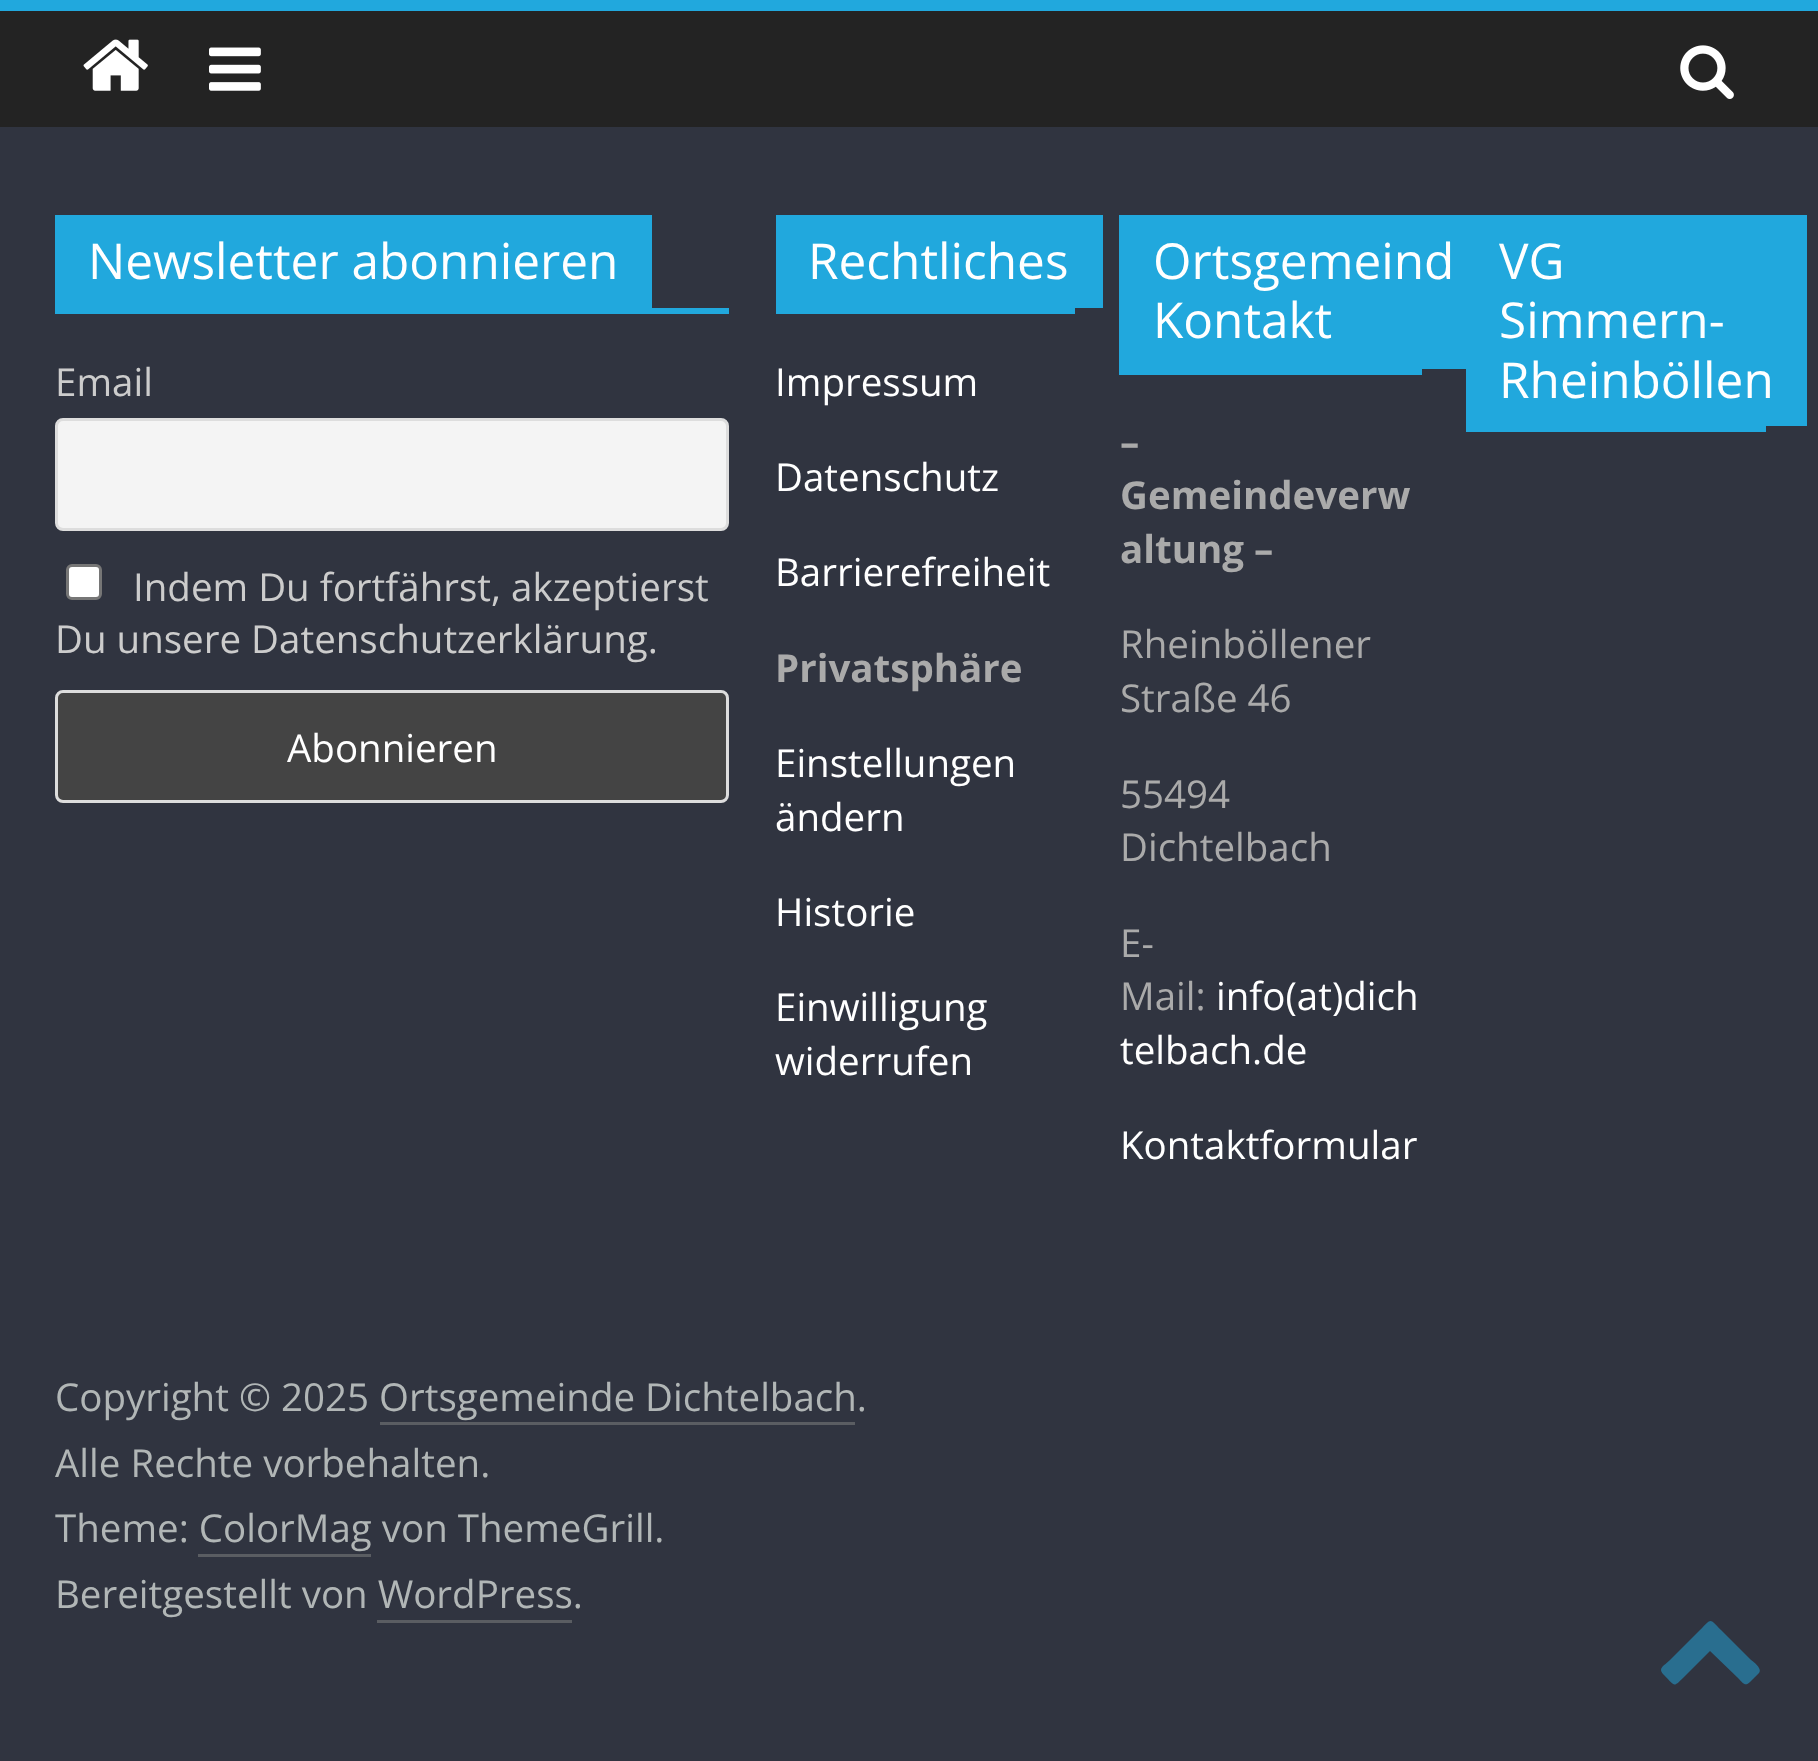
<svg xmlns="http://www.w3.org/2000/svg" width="1818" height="1761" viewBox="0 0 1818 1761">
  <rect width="100%" height="100%" fill="rgb(48,52,64)"/>
  <rect x="0" y="11" width="1818" height="116" fill="rgb(35,35,35)"/>
  <rect x="0" y="0" width="1818" height="11" fill="rgb(33,168,221)"/>
  <image x="83" y="39" width="65" height="52" href="pic1.png"/>
  <image x="209" y="47" width="52" height="44" href="pic2.png"/>
  <image x="1680" y="45" width="54" height="54" href="pic3.png"/>
  <rect x="55" y="308" width="674" height="6" fill="rgb(33,168,221)"/>
  <rect x="55" y="215" width="597" height="93" fill="rgb(33,168,221)"/>
  <text x="88" y="279" font-family="Open Sans" font-size="49.5" fill="rgb(255,255,255)">Newsletter abonnieren</text>
  <text x="55" y="396" font-family="Open Sans" font-size="38.5" fill="rgb(204,204,204)">Email</text>
  <rect x="56.5" y="419.5" width="671" height="110" rx="6.5" fill="rgb(244,244,244)" stroke="rgb(221,221,221)" stroke-width="3"/>
  <rect x="67.5" y="565.5" width="33" height="33" rx="4.5" fill="rgb(255,255,255)" stroke="rgb(118,118,118)" stroke-width="3"/>
  <g font-family="Open Sans" font-size="38.5" fill="rgb(204,204,204)">
    <text x="133" y="601">Indem Du fortfährst, akzeptierst</text>
    <text x="55" y="653">Du unsere Datenschutzerklärung.</text>
  </g>
  <rect x="56.5" y="691.5" width="671" height="110" rx="6.5" fill="rgb(68,68,68)" stroke="rgb(221,221,221)" stroke-width="3"/>
  <text x="287" y="762" font-family="Open Sans" font-size="38.5" fill="rgb(255,255,255)">Abonnieren</text>
  <rect x="776" y="308" width="299" height="6" fill="rgb(33,168,221)"/>
  <rect x="776" y="215" width="327" height="93" fill="rgb(33,168,221)"/>
  <text x="808" y="279" font-family="Open Sans" font-size="49.5" fill="rgb(255,255,255)">Rechtliches</text>
  <g font-family="Open Sans" font-size="38.5" fill="rgb(255,255,255)">
    <text x="775" y="396">Impressum</text>
    <text x="775" y="491">Datenschutz</text>
    <text x="775" y="586">Barrierefreiheit</text>
  </g>
  <text x="775" y="682" font-family="Open Sans" font-size="38.5" font-weight="bold" fill="rgb(170,170,170)">Privatsphäre</text>
  <g font-family="Open Sans" font-size="38.5" fill="rgb(255,255,255)">
    <text>
      <tspan x="775" y="777">Einstellungen</tspan>
      <tspan x="775" y="831">ändern</tspan>
    </text>
    <text x="775" y="926">Historie</text>
    <text>
      <tspan x="775" y="1021">Einwilligung</tspan>
      <tspan x="775" y="1075">widerrufen</tspan>
    </text>
  </g>
  <rect x="1119" y="369" width="303" height="6" fill="rgb(33,168,221)"/>
  <rect x="1119" y="215" width="347" height="154" fill="rgb(33,168,221)"/>
  <g font-family="Open Sans" font-size="49.5" fill="rgb(255,255,255)">
    <text>
      <tspan x="1153" y="279">Ortsgemeind</tspan>
      <tspan x="1153" y="338">Kontakt</tspan>
    </text>
  </g>
  <g font-family="Open Sans" font-size="38.5" font-weight="bold" fill="rgb(170,170,170)">
    <text>
      <tspan x="1120" y="456">–</tspan>
      <tspan x="1120" y="509">Gemeindeverw</tspan>
      <tspan x="1120" y="563">altung –</tspan>
    </text>
  </g>
  <g font-family="Open Sans" font-size="38.5" fill="rgb(170,170,170)">
    <text>
      <tspan x="1120" y="658">Rheinböllener</tspan>
      <tspan x="1120" y="712">Straße 46</tspan>
    </text>
    <text>
      <tspan x="1120" y="808">55494</tspan>
      <tspan x="1120" y="861">Dichtelbach</tspan>
    </text>
    <text>
      <tspan x="1120" y="957">E-</tspan>
      <tspan x="1120" y="1010">Mail:</tspan>
    </text>
  </g>
  <g font-family="Open Sans" font-size="38.5" fill="rgb(255,255,255)">
    <text x="1216" y="1010">info(at)dich</text>
    <text x="1120" y="1064">telbach.de</text>
    <text x="1120" y="1159">Kontaktformular</text>
  </g>
  <rect x="1466" y="426" width="300" height="6" fill="rgb(33,168,221)"/>
  <rect x="1466" y="215" width="341" height="211" fill="rgb(33,168,221)"/>
  <g font-family="Open Sans" font-size="49.5" fill="rgb(255,255,255)">
    <text>
      <tspan x="1499" y="279">VG</tspan>
      <tspan x="1499" y="338">Simmern-</tspan>
      <tspan x="1499" y="398">Rheinböllen</tspan>
    </text>
  </g>
  <text x="55" y="1411" font-family="Open Sans" font-size="38.5" fill="rgb(177,182,182)">Copyright © 2025 Ortsgemeinde Dichtelbach.</text>
  <rect x="380" y="1422" width="475" height="3" fill="rgb(90,93,98)"/>
  <g font-family="Open Sans" font-size="38.5" fill="rgb(177,182,182)">
    <text>
      <tspan x="55" y="1477">Alle Rechte vorbehalten.</tspan>
      <tspan x="55" y="1542">Theme: ColorMag von ThemeGrill.</tspan>
    </text>
  </g>
  <rect x="198" y="1554" width="173" height="3" fill="rgb(90,93,98)"/>
  <text x="55" y="1608" font-family="Open Sans" font-size="38.5" fill="rgb(177,182,182)">Bereitgestellt von WordPress.</text>
  <rect x="377" y="1620" width="195" height="3" fill="rgb(90,93,98)"/>
  <path d="M1759 1673L1750 1682C1745 1687 1743 1683 1738 1678L1710 1651L1683 1678C1673 1688 1675 1686 1664 1675C1657 1668 1664 1666 1670 1660L1700 1630C1712 1618 1709 1618 1721 1630L1751 1660C1753 1661 1763 1669 1759 1673Z" fill="rgb(41,110,143)"/>
</svg>
